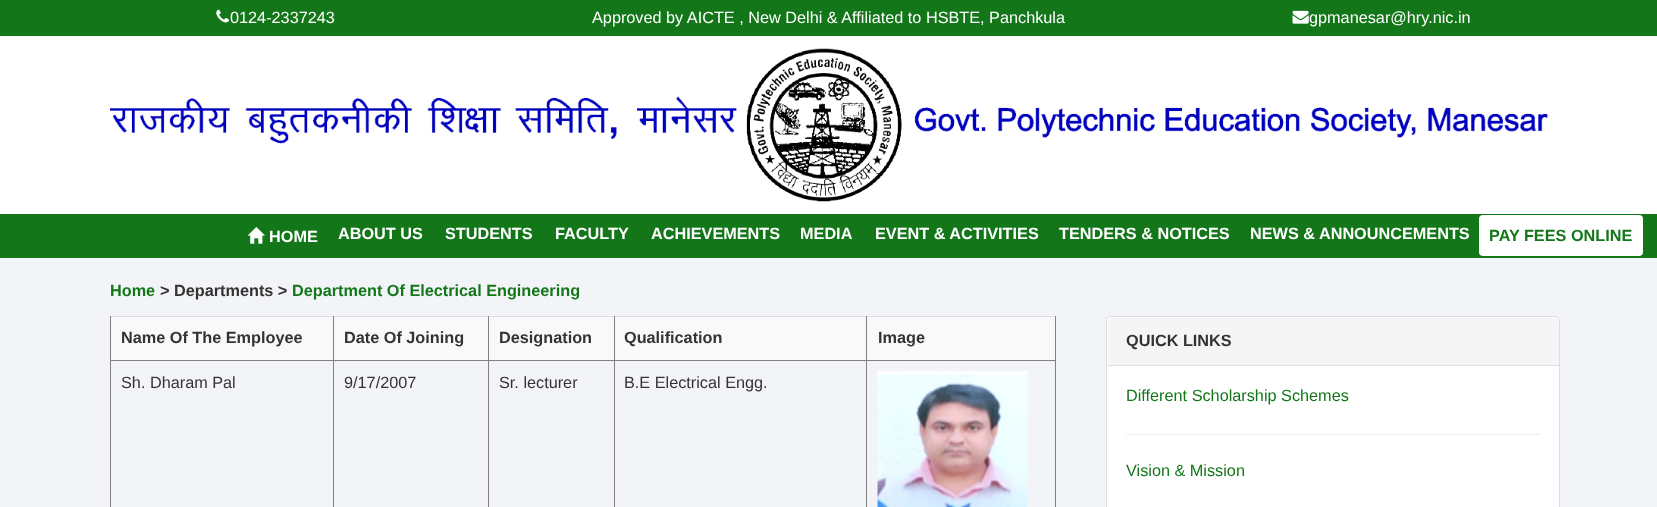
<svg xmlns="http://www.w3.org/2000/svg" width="1657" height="507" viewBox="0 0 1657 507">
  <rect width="100%" height="100%" fill="rgb(243,244,248)"/>
  <rect x="0" y="1" width="1657" height="35" fill="rgb(19,119,26)"/>
  <rect x="0" y="0" width="1657" height="1" fill="rgb(18,113,25)"/>
  <image x="216" y="9" width="13" height="14" href="pic1.png"/>
  <g font-family="Liberation Sans" font-size="16.25" fill="rgb(255,255,255)">
    <text x="230" y="23">0124-2337243</text>
    <text x="592" y="23">Approved by AICTE , New Delhi &amp; Affiliated to HSBTE, Panchkula</text>
  </g>
  <image x="1292" y="10" width="17" height="14" href="pic2.png"/>
  <text x="1309" y="23" font-family="Liberation Sans" font-size="16.25" fill="rgb(255,255,255)">gpmanesar@hry.nic.in</text>
  <rect x="0" y="36" width="1657" height="178" fill="rgb(255,255,255)"/>
  <image x="110" y="48" width="1438" height="154" href="pic3.png"/>
  <rect x="0" y="214" width="1657" height="44" fill="rgb(19,119,26)"/>
  <image x="247" y="227" width="18" height="17" href="pic4.png"/>
  <g font-family="Liberation Sans" font-size="16.25" font-weight="bold" fill="rgb(255,255,255)">
    <text x="269" y="242">HOME</text>
    <text x="338" y="239">ABOUT US</text>
    <text x="445" y="239">STUDENTS</text>
    <text x="555" y="239">FACULTY</text>
    <text x="651" y="239">ACHIEVEMENTS</text>
    <text x="800" y="239">MEDIA</text>
    <text x="875" y="239">EVENT &amp; ACTIVITIES</text>
    <text x="1059" y="239">TENDERS &amp; NOTICES</text>
    <text x="1250" y="239">NEWS &amp; ANNOUNCEMENTS</text>
  </g>
  <rect x="1479" y="215" width="164" height="41" rx="4" fill="rgb(255,255,255)"/>
  <g font-family="Liberation Sans" font-size="16.25" font-weight="bold" fill="rgb(19,119,26)">
    <text x="1489" y="241">PAY FEES ONLINE</text>
    <text x="110" y="296">Home</text>
  </g>
  <text x="160" y="296" font-family="Liberation Sans" font-size="16.25" font-weight="bold" fill="rgb(51,51,51)">&gt; Departments &gt;</text>
  <text x="292" y="296" font-family="Liberation Sans" font-size="16.25" font-weight="bold" fill="rgb(19,119,26)">Department Of Electrical Engineering</text>
  <rect x="111" y="317" width="944" height="43" fill="rgb(249,249,249)"/>
  <rect x="110" y="316" width="946" height="1" fill="rgb(221,221,221)"/>
  <rect x="1055" y="360" width="1" height="147" fill="rgb(128,128,128)"/>
  <rect x="1055" y="316" width="1" height="45" fill="rgb(128,128,128)"/>
  <rect x="866" y="360" width="1" height="147" fill="rgb(128,128,128)"/>
  <rect x="866" y="360" width="190" height="1" fill="rgb(128,128,128)"/>
  <rect x="866" y="316" width="1" height="45" fill="rgb(128,128,128)"/>
  <rect x="614" y="360" width="1" height="147" fill="rgb(128,128,128)"/>
  <rect x="614" y="360" width="254" height="1" fill="rgb(128,128,128)"/>
  <rect x="614" y="316" width="1" height="45" fill="rgb(128,128,128)"/>
  <rect x="488" y="360" width="1" height="147" fill="rgb(128,128,128)"/>
  <rect x="488" y="360" width="127" height="1" fill="rgb(128,128,128)"/>
  <rect x="488" y="316" width="1" height="45" fill="rgb(128,128,128)"/>
  <rect x="333" y="360" width="1" height="147" fill="rgb(128,128,128)"/>
  <rect x="333" y="360" width="156" height="1" fill="rgb(128,128,128)"/>
  <rect x="333" y="316" width="1" height="45" fill="rgb(128,128,128)"/>
  <rect x="110" y="360" width="1" height="147" fill="rgb(128,128,128)"/>
  <rect x="110" y="360" width="224" height="1" fill="rgb(128,128,128)"/>
  <rect x="110" y="316" width="1" height="45" fill="rgb(128,128,128)"/>
  <g font-family="Liberation Sans" font-size="16.25" font-weight="bold" fill="rgb(51,51,51)">
    <text x="121" y="343">Name Of The Employee</text>
    <text x="344" y="343">Date Of Joining</text>
    <text x="499" y="343">Designation</text>
    <text x="624" y="343">Qualification</text>
    <text x="878" y="343">Image</text>
  </g>
  <g font-family="Liberation Sans" font-size="16.25" fill="rgb(51,51,51)">
    <text x="121" y="388">Sh. Dharam Pal</text>
    <text x="344" y="388">9/17/2007</text>
    <text x="499" y="388">Sr. lecturer</text>
    <text x="624" y="388">B.E Electrical Engg.</text>
  </g>
  <image x="877" y="371" width="151" height="136" href="pic5.png"/>
  <rect x="1106.5" y="316.5" width="453" height="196" rx="4.5" fill="rgb(255,255,255)" stroke="rgb(221,221,221)"/>
  <path d="M1112 318H1555C1557 318 1559 320 1559 322V366H1108V322C1108 320 1110 318 1112 318Z" fill="rgb(245,245,245)"/>
  <rect x="1108" y="365" width="451" height="1" fill="rgb(221,221,221)"/>
  <text x="1126" y="346" font-family="Liberation Sans" font-size="16.25" font-weight="bold" fill="rgb(51,51,51)">QUICK LINKS</text>
  <text x="1126" y="401" font-family="Liberation Sans" font-size="16.25" fill="rgb(19,119,26)">Different Scholarship Schemes</text>
  <rect x="1126" y="434" width="414" height="1" fill="rgb(238,238,238)"/>
  <text x="1126" y="476" font-family="Liberation Sans" font-size="16.25" fill="rgb(19,119,26)">Vision &amp; Mission</text>
</svg>
